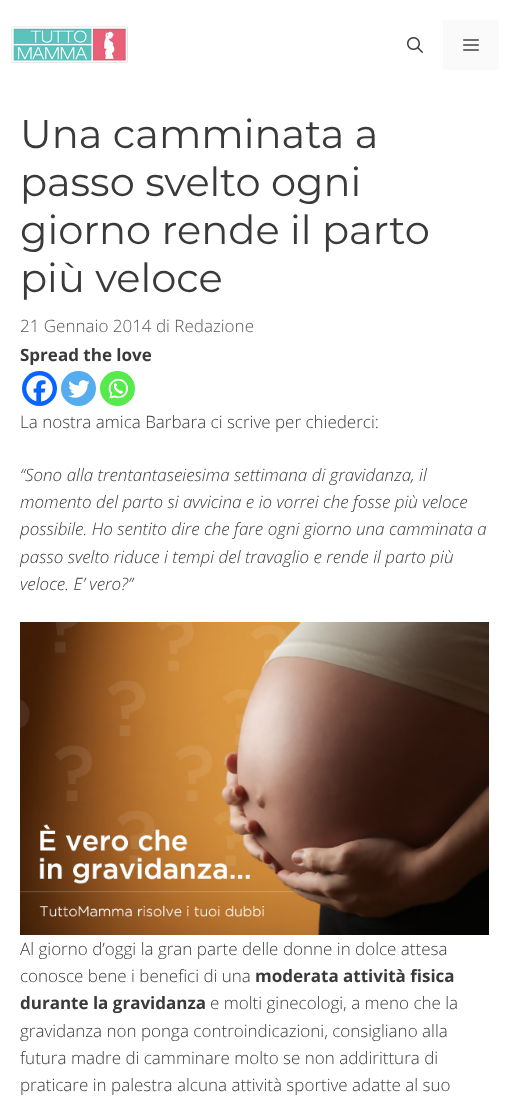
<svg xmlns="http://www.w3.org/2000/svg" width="509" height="1111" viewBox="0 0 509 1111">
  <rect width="100%" height="100%" fill="rgb(255,255,255)"/>
  <image x="11" y="26" width="117" height="37" href="pic1.png"/>
  <image x="407" y="37" width="16" height="16" href="pic2.png"/>
  <rect x="443" y="20" width="56" height="50" fill="rgb(250,250,250)"/>
  <image x="463" y="39" width="16" height="12" href="pic3.png"/>
  <g font-family="Montserrat" font-size="40" fill="rgb(58,58,58)">
    <text>
      <tspan x="20" y="148">Una camminata a</tspan>
      <tspan x="20" y="196">passo svelto ogni</tspan>
      <tspan x="20" y="244">giorno rende il parto</tspan>
      <tspan x="20" y="292">più veloce</tspan>
    </text>
  </g>
  <text x="20" y="332" font-family="Open Sans" font-size="17" font-weight="300" fill="rgb(89,89,89)">21 Gennaio 2014 di Redazione</text>
  <text x="20" y="361" font-family="Open Sans" font-size="17" font-weight="bold" fill="rgb(58,58,58)">Spread the love</text>
  <circle cx="39.5" cy="388.5" r="17.5" fill="rgb(7,101,254)"/>
  <image x="26" y="375" width="27" height="27" href="pic4.png"/>
  <circle cx="78.5" cy="388.5" r="17.5" fill="rgb(85,172,238)"/>
  <image x="68" y="380" width="22" height="18" href="pic5.png"/>
  <circle cx="117.5" cy="388.5" r="17.5" fill="rgb(85,235,76)"/>
  <image x="108" y="378" width="20" height="21" href="pic6.png"/>
  <text x="20" y="428" font-family="Open Sans" font-size="17" font-weight="300" fill="rgb(58,58,58)">La nostra amica Barbara ci scrive per chiederci:</text>
  <g font-family="Open Sans" font-size="17" font-weight="300" font-style="italic" fill="rgb(58,58,58)">
    <text>
      <tspan x="20" y="481">“Sono alla trentantaseiesima settimana di gravidanza, il</tspan>
      <tspan x="20" y="508">momento del parto si avvicina e io vorrei che fosse più veloce</tspan>
      <tspan x="20" y="535">possibile. Ho sentito dire che fare ogni giorno una camminata a</tspan>
      <tspan x="20" y="563">passo svelto riduce i tempi del travaglio e rende il parto più</tspan>
      <tspan x="20" y="590">veloce. E’ vero?”</tspan>
    </text>
  </g>
  <image x="20" y="622" width="469" height="313" href="pic7.png"/>
  <g font-family="Open Sans" font-size="17" font-weight="300" fill="rgb(58,58,58)">
    <text>
      <tspan x="20" y="955">Al giorno d’oggi la gran parte delle donne in dolce attesa</tspan>
      <tspan x="20" y="982">conosce bene i benefici di una</tspan>
    </text>
  </g>
  <g font-family="Open Sans" font-size="17" font-weight="bold" fill="rgb(58,58,58)">
    <text x="255" y="982">moderata attività fisica</text>
    <text x="20" y="1009">durante la gravidanza</text>
  </g>
  <g font-family="Open Sans" font-size="17" font-weight="300" fill="rgb(58,58,58)">
    <text x="210" y="1009">e molti ginecologi, a meno che la</text>
    <text>
      <tspan x="20" y="1037">gravidanza non ponga controindicazioni, consigliano alla</tspan>
      <tspan x="20" y="1064">futura madre di camminare molto se non addirittura di</tspan>
      <tspan x="20" y="1091">praticare in palestra alcuna attività sportive adatte al suo</tspan>
    </text>
  </g>
</svg>
